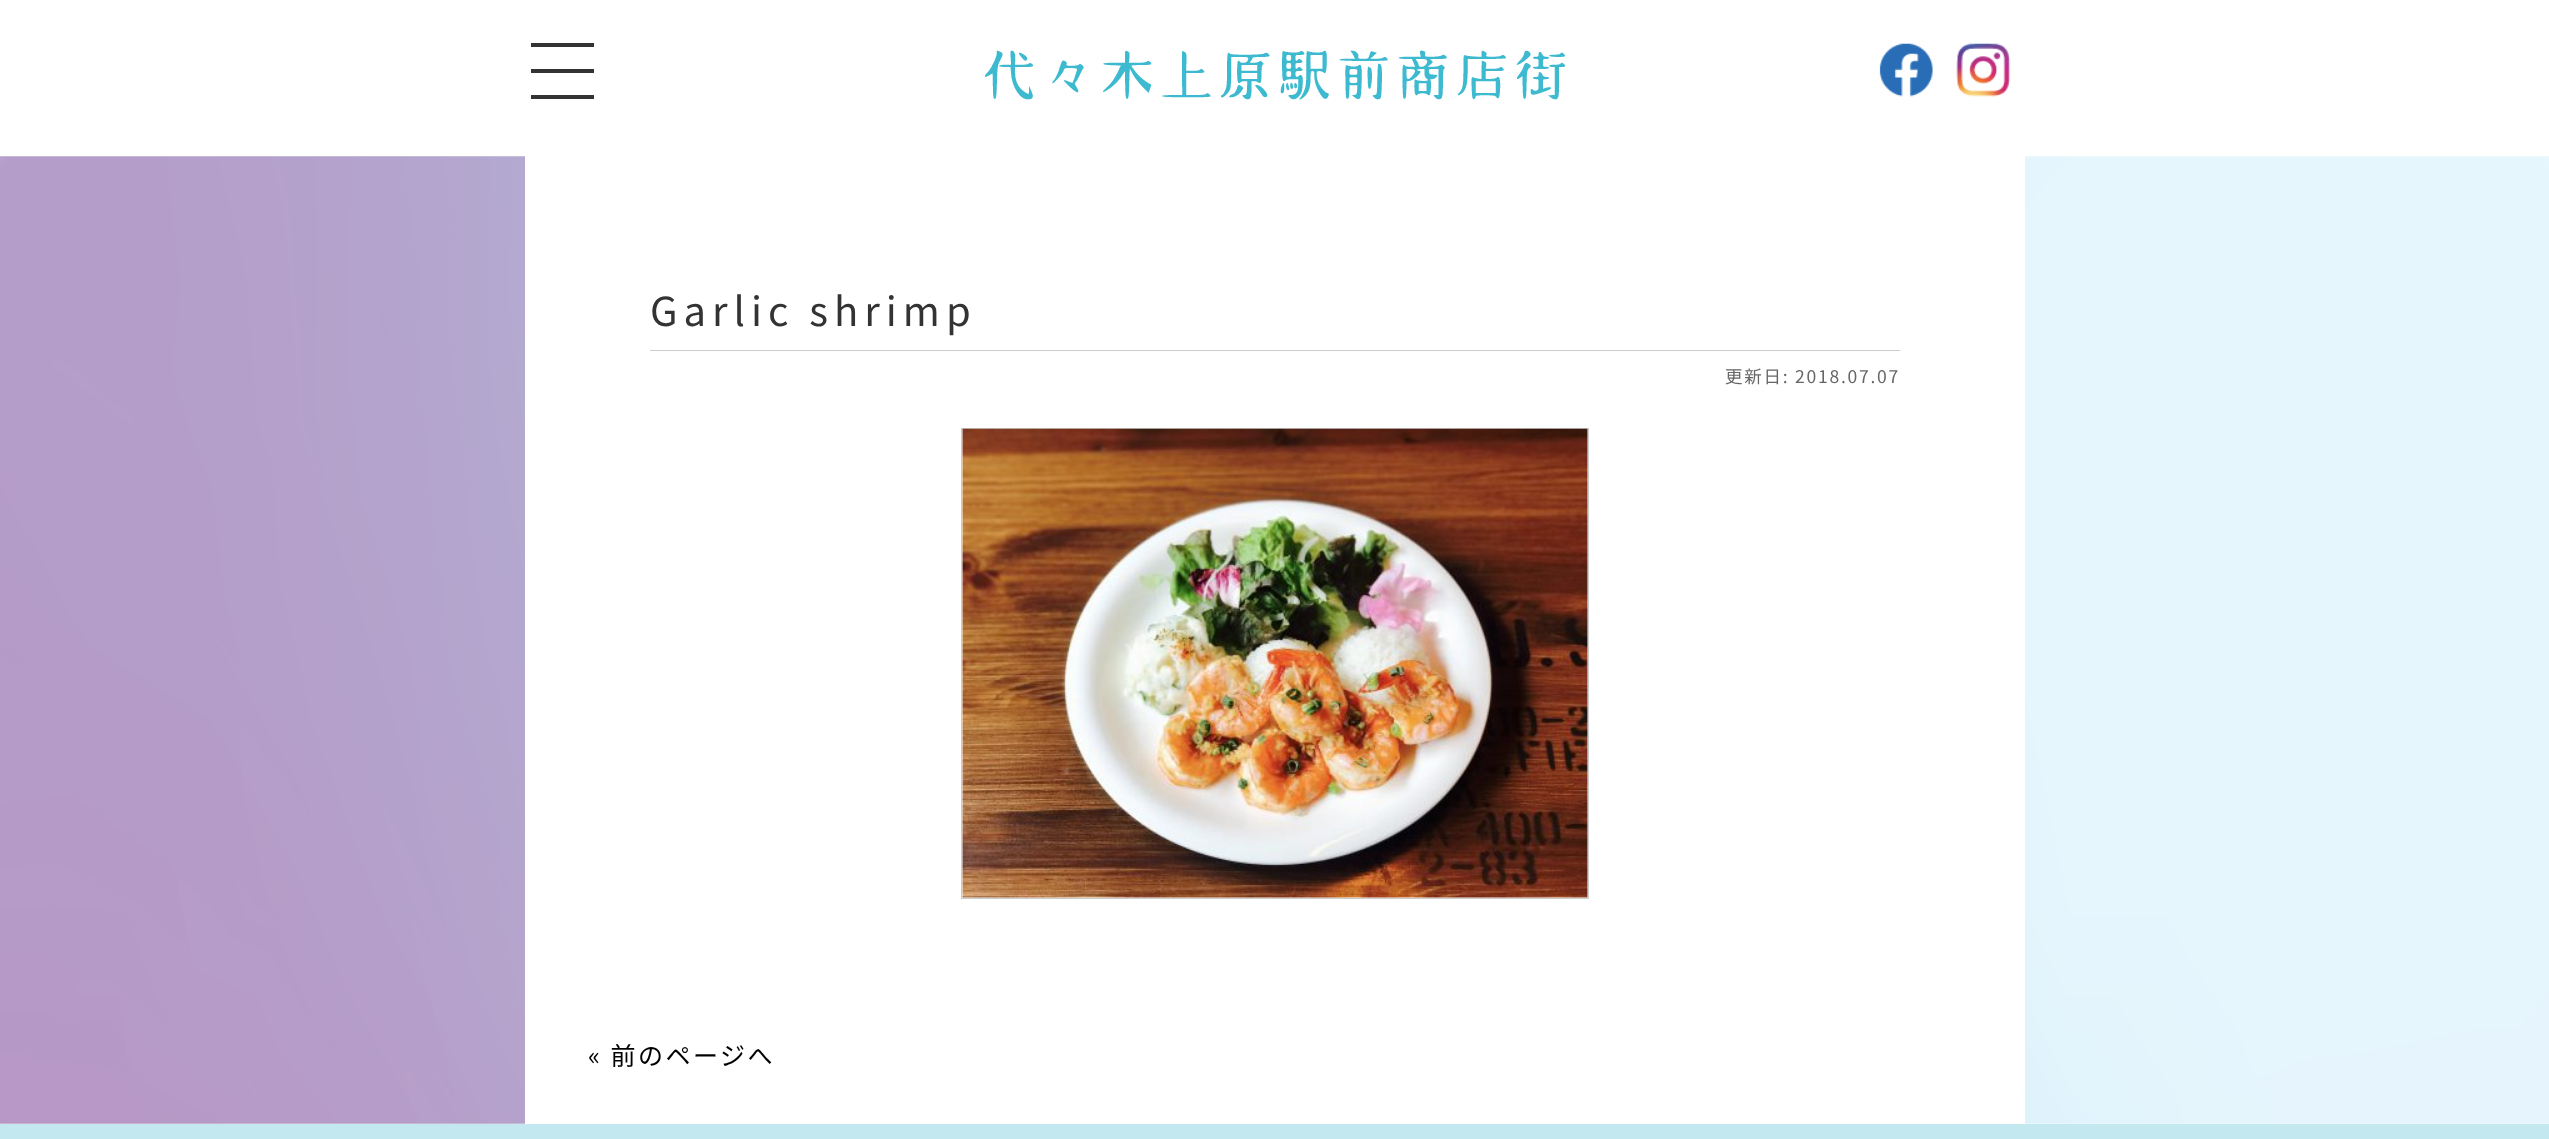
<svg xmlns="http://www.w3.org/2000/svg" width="2549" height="1139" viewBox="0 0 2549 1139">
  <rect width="100%" height="100%" fill="rgb(255,255,255)"/>
  <rect x="531" y="43" width="63" height="4" fill="rgb(51,51,51)"/>
  <rect x="531" y="69" width="63" height="4" fill="rgb(51,51,51)"/>
  <rect x="531" y="95" width="63" height="4" fill="rgb(51,51,51)"/>
  <image x="985" y="50" width="580" height="50" href="pic1.png"/>
  <image x="1879" y="43" width="54" height="54" href="pic2.png"/>
  <image x="1956" y="43" width="55" height="54" href="pic3.png"/>
  <image x="0" y="156" width="2549" height="968" href="pic4.png"/>
  <rect x="525" y="156" width="1500" height="968" fill="rgb(255,255,255)"/>
  <rect x="650" y="350" width="1250" height="1" fill="rgb(204,204,204)"/>
  <text x="650" y="326" font-family="Noto Sans JP" font-size="40" letter-spacing="6" fill="rgb(51,51,51)">Garlic shrimp</text>
  <text x="1725" y="383" font-family="Noto Sans JP" font-size="17.5" letter-spacing="1.75" fill="rgb(102,102,102)">更新日: 2018.07.07</text>
  <rect x="961.5" y="428.5" width="627" height="470" fill="none" stroke="rgb(204,204,204)"/>
  <image x="962" y="428" width="626" height="470" href="pic5.png"/>
  <text x="588" y="1065" font-family="Noto Sans JP" font-size="25" letter-spacing="2.5" fill="rgb(0,0,0)">« 前のページへ</text>
  <rect x="0" y="1124" width="2549" height="15" fill="rgb(195,232,239)"/>
</svg>
